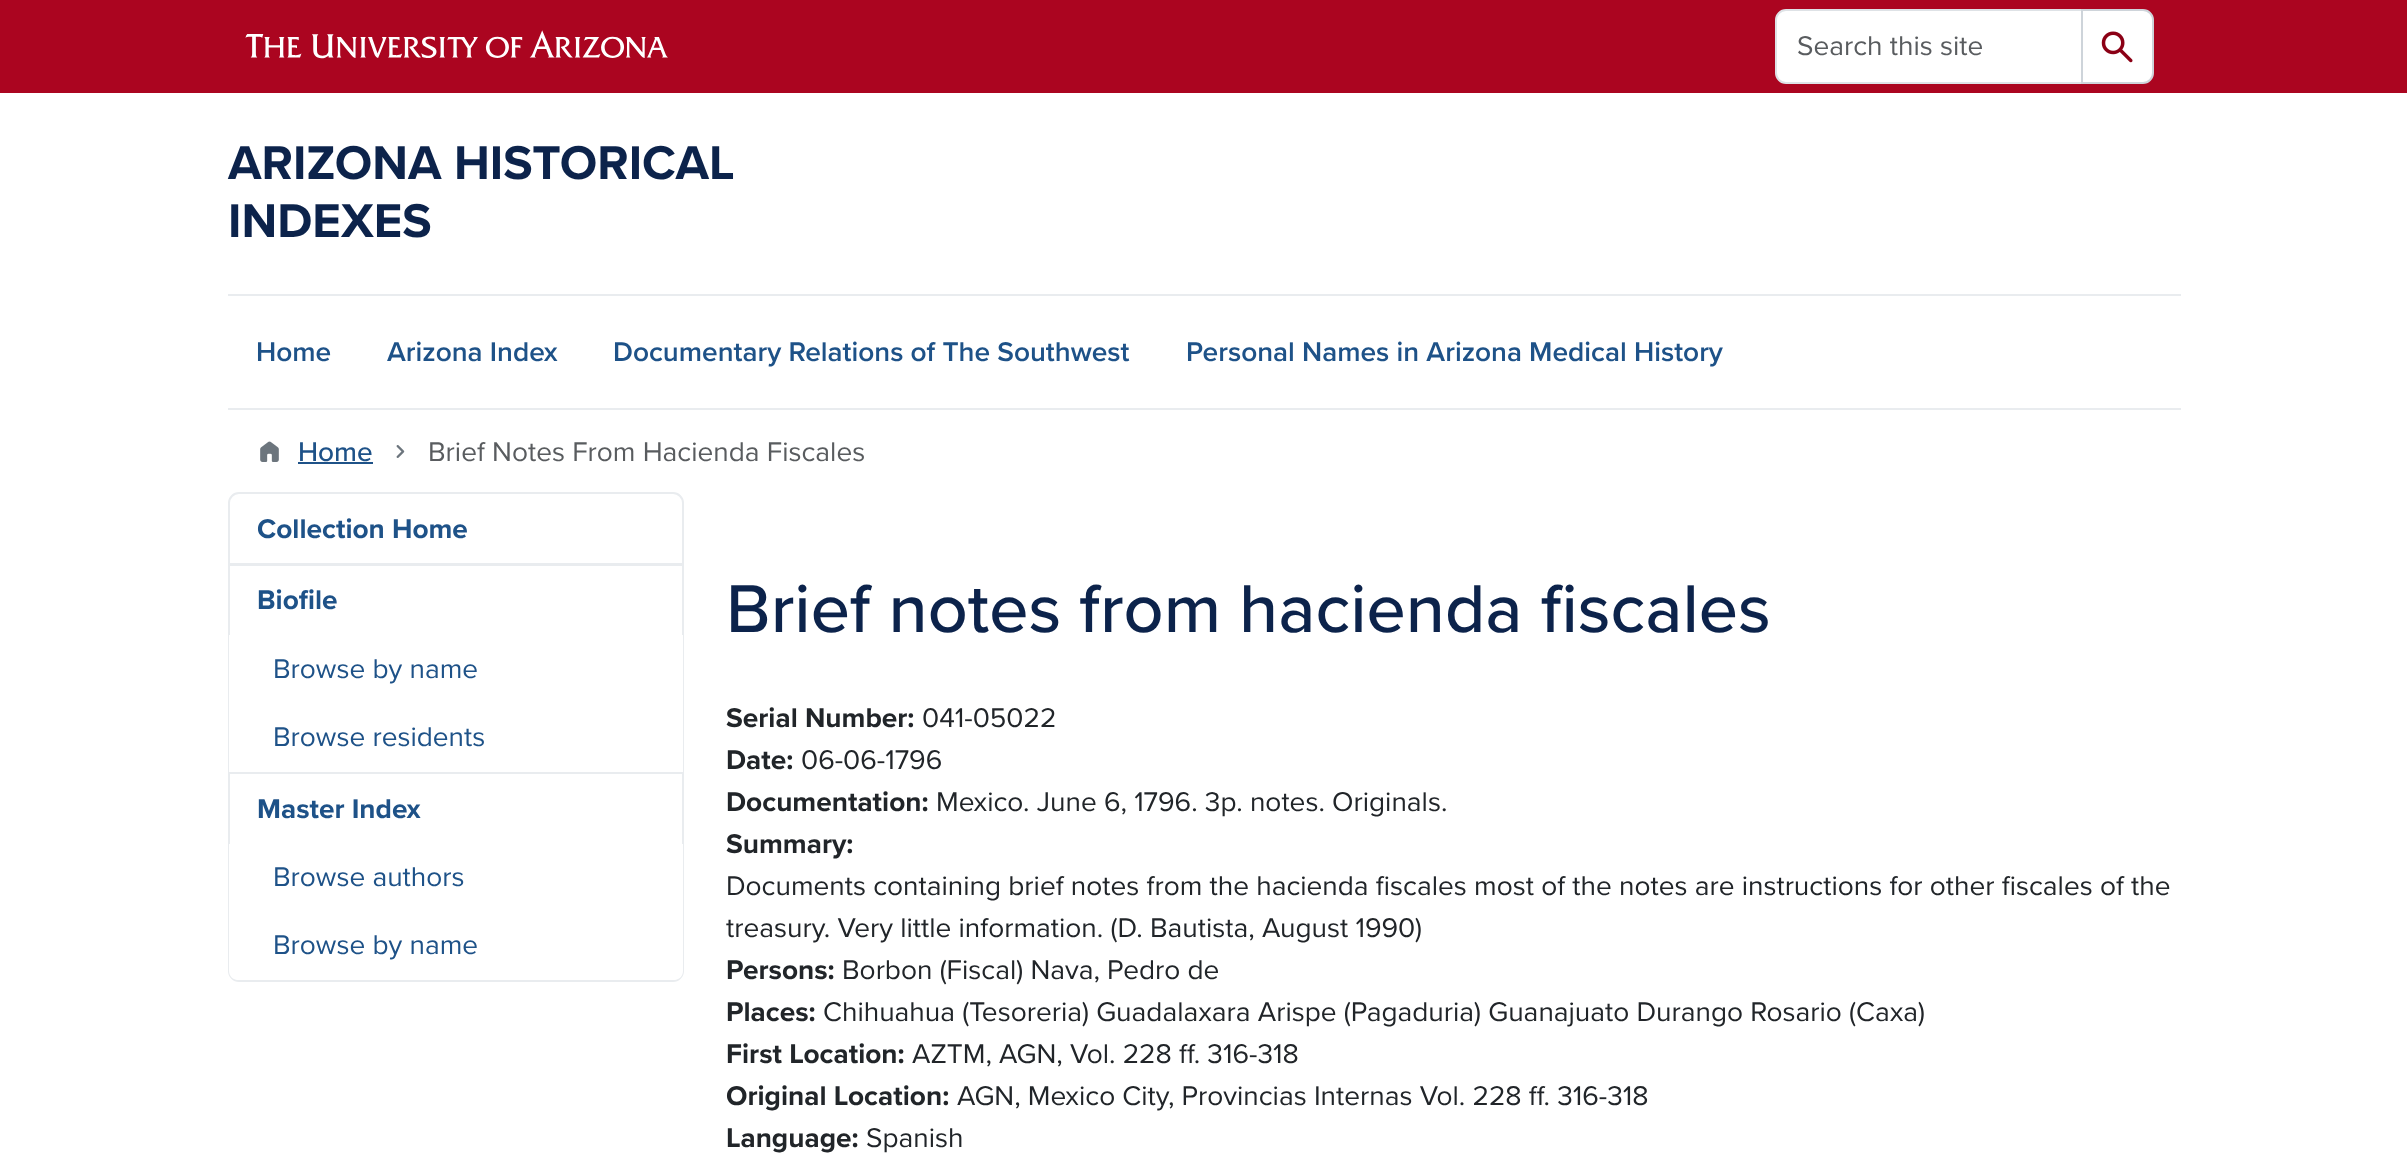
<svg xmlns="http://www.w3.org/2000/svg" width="2407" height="1169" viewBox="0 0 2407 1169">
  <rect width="100%" height="100%" fill="rgb(255,255,255)"/>
  <rect x="0" y="0" width="2407" height="93" fill="rgb(171,5,32)"/>
  <image x="245" y="30" width="423" height="29" href="pic1.png"/>
  <path d="M1786 10H2082V83H1786C1780.5 83 1776 78.5 1776 73V20C1776 14.5 1780.5 10 1786 10Z" fill="rgb(255,255,255)" stroke="rgb(222,226,230)" stroke-width="2"/>
  <text x="1797" y="55" font-family="Proxima Nova" font-size="28" fill="rgb(89,92,95)">Search this site</text>
  <path d="M2082 10H2143C2148.5 10 2153 14.5 2153 20V73C2153 78.5 2148.5 83 2143 83H2082Z" fill="rgb(255,255,255)" stroke="rgb(206,212,218)" stroke-width="2"/>
  <image x="2101" y="31" width="32" height="32" href="pic2.png"/>
  <g font-family="Proxima Nova" font-size="49" font-weight="bold" fill="rgb(12,35,75)">
    <text>
      <tspan x="228" y="179">ARIZONA HISTORICAL</tspan>
      <tspan x="228" y="237">INDEXES</tspan>
    </text>
  </g>
  <rect x="228" y="294" width="1953" height="2" fill="rgb(233,236,239)"/>
  <rect x="228" y="408" width="1953" height="2" fill="rgb(233,236,239)"/>
  <g font-family="Proxima Nova" font-size="28" font-weight="600" fill="rgb(30,82,136)">
    <text x="256" y="361">Home</text>
    <text x="387" y="361">Arizona Index</text>
    <text x="613" y="361">Documentary Relations of The Southwest</text>
    <text x="1186" y="361">Personal Names in Arizona Medical History</text>
  </g>
  <image x="260" y="441" width="19" height="21" href="pic3.png"/>
  <text x="298" y="461" font-family="Proxima Nova" font-size="28" font-weight="500" fill="rgb(30,82,136)">Home</text>
  <rect x="298" y="462" width="75" height="2" fill="rgb(30,82,136)"/>
  <image x="396" y="445" width="9" height="13" href="pic4.png"/>
  <text x="428" y="461" font-family="Proxima Nova" font-size="28" fill="rgb(89,92,95)">Brief Notes From Hacienda Fiscales</text>
  <rect x="229" y="565" width="454" height="208" fill="none" stroke="rgb(233,236,239)" stroke-width="2"/>
  <path d="M239 493H673C678.5 493 683 497.5 683 503V564H229V503C229 497.5 233.5 493 239 493Z" fill="none" stroke="rgb(233,236,239)" stroke-width="2"/>
  <g font-family="Proxima Nova" font-size="28" font-weight="bold" fill="rgb(30,82,136)">
    <text x="257" y="538">Collection Home</text>
    <text x="257" y="609">Biofile</text>
  </g>
  <rect x="229" y="635" width="454" height="137" fill="rgb(255,255,255)"/>
  <g font-family="Proxima Nova" font-size="28" fill="rgb(30,82,136)">
    <text x="273" y="678">Browse by name</text>
    <text x="273" y="746">Browse residents</text>
  </g>
  <path d="M229 773H683V971C683 976.5 678.5 981 673 981H239C233.5 981 229 976.5 229 971Z" fill="none" stroke="rgb(233,236,239)" stroke-width="2"/>
  <text x="257" y="818" font-family="Proxima Nova" font-size="28" font-weight="bold" fill="rgb(30,82,136)">Master Index</text>
  <path d="M229 844H683V971C683 976 679 980 674 980H238C233 980 229 976 229 971Z" fill="rgb(255,255,255)"/>
  <g font-family="Proxima Nova" font-size="28" fill="rgb(30,82,136)">
    <text x="273" y="886">Browse authors</text>
    <text x="273" y="954">Browse by name</text>
  </g>
  <text x="726" y="632" font-family="Proxima Nova" font-size="70" font-weight="500" fill="rgb(12,35,75)">Brief notes from hacienda fiscales</text>
  <text x="726" y="727" font-family="Proxima Nova" font-size="28" font-weight="bold" fill="rgb(33,37,41)">Serial Number:</text>
  <text x="922" y="727" font-family="Proxima Nova" font-size="28" fill="rgb(33,37,41)">041-05022</text>
  <text x="726" y="769" font-family="Proxima Nova" font-size="28" font-weight="bold" fill="rgb(33,37,41)">Date:</text>
  <text x="801" y="769" font-family="Proxima Nova" font-size="28" fill="rgb(33,37,41)">06-06-1796</text>
  <text x="726" y="811" font-family="Proxima Nova" font-size="28" font-weight="bold" fill="rgb(33,37,41)">Documentation:</text>
  <text x="936" y="811" font-family="Proxima Nova" font-size="28" fill="rgb(33,37,41)">Mexico. June 6, 1796. 3p. notes. Originals.</text>
  <text x="726" y="853" font-family="Proxima Nova" font-size="28" font-weight="bold" fill="rgb(33,37,41)">Summary:</text>
  <g font-family="Proxima Nova" font-size="28" fill="rgb(33,37,41)">
    <text>
      <tspan x="726" y="895">Documents containing brief notes from the hacienda fiscales most of the notes are instructions for other fiscales of the</tspan>
      <tspan x="726" y="937">treasury. Very little information. (D. Bautista, August 1990)</tspan>
    </text>
  </g>
  <text x="726" y="979" font-family="Proxima Nova" font-size="28" font-weight="bold" fill="rgb(33,37,41)">Persons:</text>
  <text x="842" y="979" font-family="Proxima Nova" font-size="28" fill="rgb(33,37,41)">Borbon (Fiscal) Nava, Pedro de</text>
  <text x="726" y="1021" font-family="Proxima Nova" font-size="28" font-weight="bold" fill="rgb(33,37,41)">Places:</text>
  <text x="823" y="1021" font-family="Proxima Nova" font-size="28" fill="rgb(33,37,41)">Chihuahua (Tesoreria) Guadalaxara Arispe (Pagaduria) Guanajuato Durango Rosario (Caxa)</text>
  <text x="726" y="1063" font-family="Proxima Nova" font-size="28" font-weight="bold" fill="rgb(33,37,41)">First Location:</text>
  <text x="912" y="1063" font-family="Proxima Nova" font-size="28" fill="rgb(33,37,41)">AZTM, AGN, Vol. 228 ff. 316-318</text>
  <text x="726" y="1105" font-family="Proxima Nova" font-size="28" font-weight="bold" fill="rgb(33,37,41)">Original Location:</text>
  <text x="957" y="1105" font-family="Proxima Nova" font-size="28" fill="rgb(33,37,41)">AGN, Mexico City, Provincias Internas Vol. 228 ff. 316-318</text>
  <text x="726" y="1147" font-family="Proxima Nova" font-size="28" font-weight="bold" fill="rgb(33,37,41)">Language:</text>
  <text x="866" y="1147" font-family="Proxima Nova" font-size="28" fill="rgb(33,37,41)">Spanish</text>
</svg>
